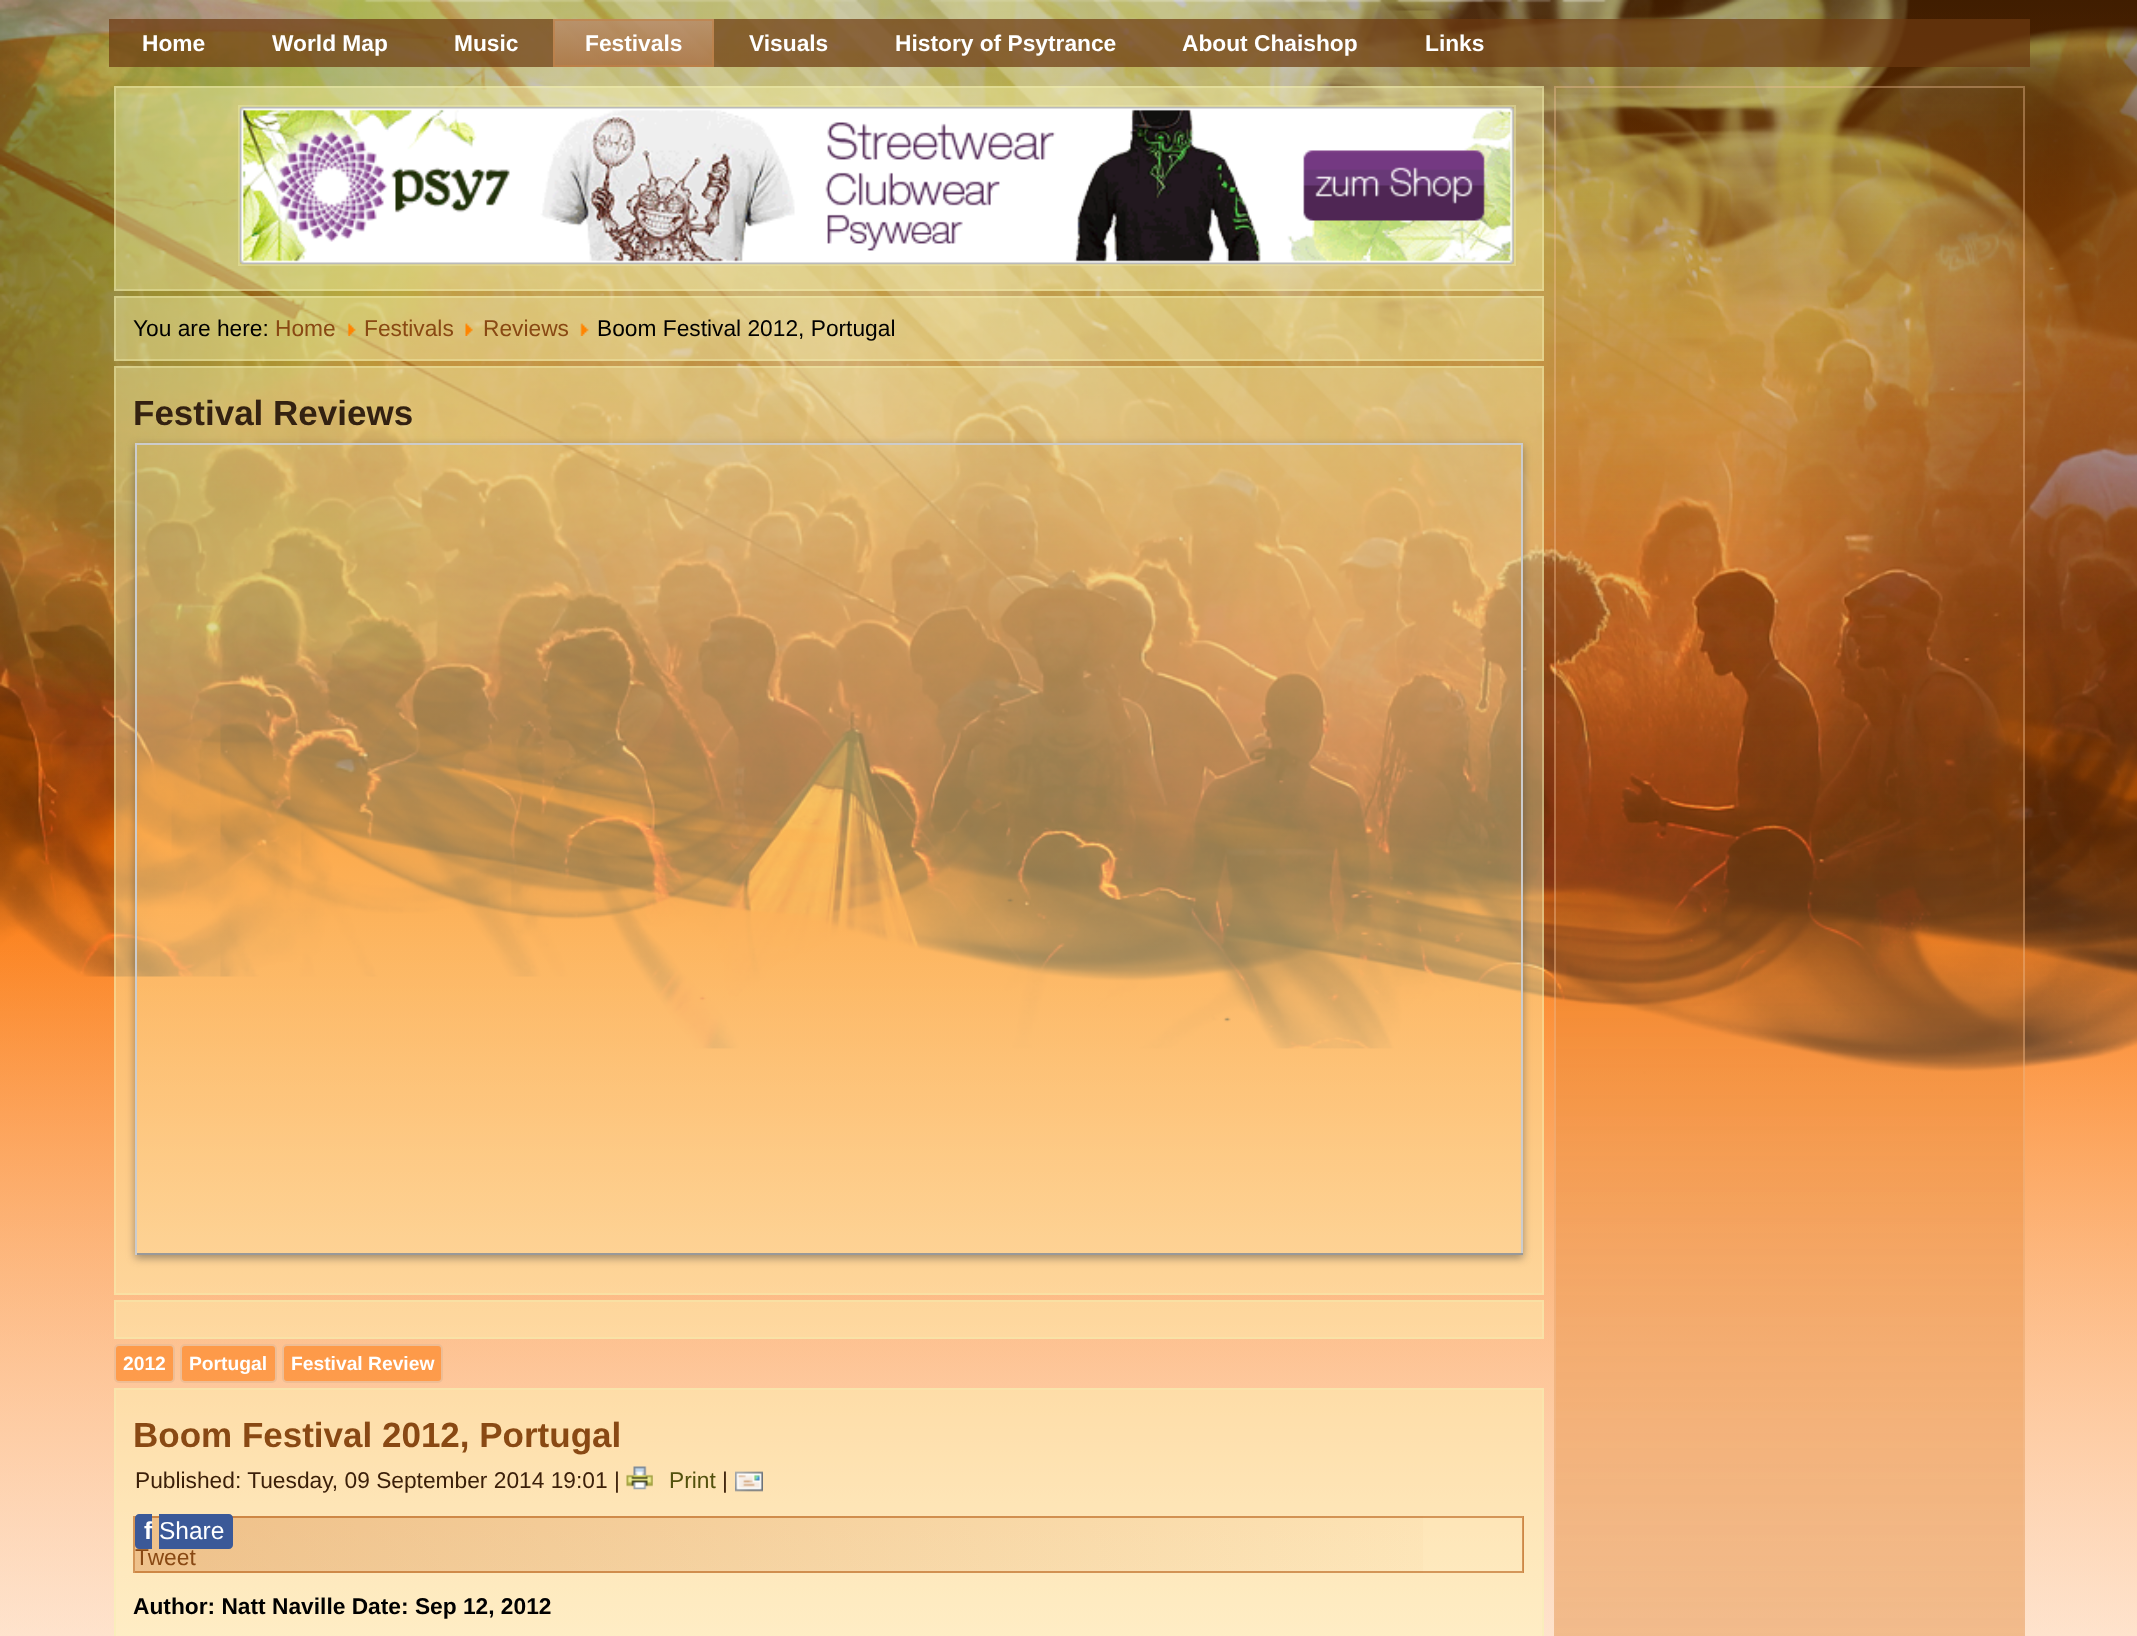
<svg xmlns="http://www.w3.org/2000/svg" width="2137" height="1636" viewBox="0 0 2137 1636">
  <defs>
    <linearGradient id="g1" gradientUnits="userSpaceOnUse" x1="634" y1="19" x2="634" y2="67"><stop offset="0" stop-color="rgb(219,181,148)" stop-opacity="0.6"/><stop offset="1" stop-color="rgb(200,142,91)" stop-opacity="0.6"/></linearGradient>
    <clipPath id="clip1"><path d="M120 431H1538V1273H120ZM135 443H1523V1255H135Z" clip-rule="evenodd"/></clipPath>
    <linearGradient id="g2" gradientUnits="userSpaceOnUse" x1="135" y1="1544" x2="1523" y2="1544"><stop offset="0" stop-color="rgb(202,103,25)" stop-opacity="0.3"/><stop offset="1" stop-color="rgb(202,103,25)" stop-opacity="0"/></linearGradient>
    <linearGradient id="g3" gradientUnits="userSpaceOnUse" x1="1523" y1="1544" x2="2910" y2="1544"><stop offset="0" stop-color="rgb(202,103,25)" stop-opacity="0.3"/><stop offset="1" stop-color="rgb(202,103,25)" stop-opacity="0"/></linearGradient>
  </defs>
  <rect width="100%" height="100%" fill="rgb(255,255,255)"/>
  <image x="0" y="0" width="2137" height="1636" href="pic1.png"/>
  <rect x="109" y="19" width="1921" height="48" fill="rgba(108,57,16,0.7)"/>
  <g font-family="Liberation Sans" font-size="22.75" font-weight="bold" fill="rgb(255,255,255)">
    <text x="142" y="51">Home</text>
    <text x="272" y="51">World Map</text>
    <text x="454" y="51">Music</text>
  </g>
  <rect x="553" y="19" width="161" height="48" fill="url(#g1)"/>
  <rect x="554" y="20" width="159" height="46" fill="none" stroke="rgba(194,128,70,0.6)" stroke-width="2"/>
  <g font-family="Liberation Sans" font-size="22.75" font-weight="bold" fill="rgb(255,255,255)">
    <text x="585" y="51">Festivals</text>
    <text x="749" y="51">Visuals</text>
    <text x="895" y="51">History of Psytrance</text>
    <text x="1182" y="51">About Chaishop</text>
    <text x="1425" y="51">Links</text>
  </g>
  <rect x="114" y="86" width="1430" height="205" fill="rgba(254,252,185,0.4)"/>
  <rect x="115" y="87" width="1428" height="203" fill="none" stroke="rgba(243,241,178,0.4)" stroke-width="2"/>
  <rect x="239" y="106" width="1276" height="159" fill="none" stroke="rgba(243,241,178,0.4)" stroke-width="2"/>
  <image x="239" y="106" width="1275" height="159" href="pic2.png"/>
  <rect x="114" y="296" width="1430" height="65" fill="rgba(254,252,185,0.4)"/>
  <rect x="115" y="297" width="1428" height="63" fill="none" stroke="rgba(243,241,178,0.4)" stroke-width="2"/>
  <text x="133" y="336" font-family="Liberation Sans" font-size="22.75" fill="rgb(0,0,0)">You are here:</text>
  <text x="275" y="336" font-family="Liberation Sans" font-size="22.75" fill="rgb(137,73,20)">Home</text>
  <image x="347" y="323" width="9" height="13" href="pic3.png"/>
  <text x="364" y="336" font-family="Liberation Sans" font-size="22.75" fill="rgb(137,73,20)">Festivals</text>
  <image x="465" y="323" width="8" height="13" href="pic4.png"/>
  <text x="483" y="336" font-family="Liberation Sans" font-size="22.75" fill="rgb(137,73,20)">Reviews</text>
  <image x="580" y="323" width="9" height="13" href="pic5.png"/>
  <text x="597" y="336" font-family="Liberation Sans" font-size="22.75" fill="rgb(0,0,0)">Boom Festival 2012, Portugal</text>
  <rect x="114" y="366" width="1430" height="929" fill="rgba(254,252,185,0.4)"/>
  <rect x="115" y="367" width="1428" height="927" fill="none" stroke="rgba(243,241,178,0.4)" stroke-width="2"/>
  <text x="133" y="425" font-family="Liberation Sans" font-size="35" font-weight="bold" fill="rgb(51,33,17)">Festival Reviews</text>
  <g clip-path="url(#clip1)">
    <rect x="135" y="446" width="1388" height="812" fill="rgba(64,64,64,0.5)" filter="blur(4.5px)"/>
  </g>
  <rect x="135" y="443" width="1388" height="2" fill="rgb(204,204,204)"/>
  <rect x="1521" y="443" width="2" height="812" fill="rgb(204,204,204)"/>
  <rect x="135" y="1253" width="1388" height="2" fill="rgb(153,153,153)"/>
  <rect x="135" y="443" width="2" height="812" fill="rgb(204,204,204)"/>
  <rect x="114" y="1300" width="1430" height="39" fill="rgba(254,252,185,0.4)"/>
  <rect x="115" y="1301" width="1428" height="37" fill="none" stroke="rgba(243,241,178,0.4)" stroke-width="2"/>
  <rect x="115" y="1345" width="59" height="37" rx="4" fill="rgba(254,127,23,0.6)" stroke="rgb(239,189,148)" stroke-width="2"/>
  <text x="123" y="1370" font-family="Liberation Sans" font-size="19.25" font-weight="bold" fill="rgb(255,255,255)">2012</text>
  <rect x="181" y="1345" width="95" height="37" rx="4" fill="rgba(254,127,23,0.6)" stroke="rgb(239,189,148)" stroke-width="2"/>
  <text x="189" y="1370" font-family="Liberation Sans" font-size="19.25" font-weight="bold" fill="rgb(255,255,255)">Portugal</text>
  <rect x="283" y="1345" width="159" height="37" rx="4" fill="rgba(254,127,23,0.6)" stroke="rgb(239,189,148)" stroke-width="2"/>
  <text x="291" y="1370" font-family="Liberation Sans" font-size="19.25" font-weight="bold" fill="rgb(255,255,255)">Festival Review</text>
  <rect x="114" y="1388" width="1430" height="248" fill="rgba(254,252,185,0.4)"/>
  <rect x="115" y="1389" width="1428" height="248" fill="none" stroke="rgba(243,241,178,0.4)" stroke-width="2"/>
  <text x="133" y="1447" font-family="Liberation Sans" font-size="35" font-weight="bold" fill="rgb(137,73,20)">Boom Festival 2012, Portugal</text>
  <text x="135" y="1488" font-family="Liberation Sans" font-size="22.75" fill="rgb(59,31,9)">Published: Tuesday, 09 September 2014 19:01 |</text>
  <image x="626" y="1466" width="27" height="24" href="pic6.png"/>
  <text x="669" y="1488" font-family="Liberation Sans" font-size="22.75" fill="rgb(82,81,13)">Print</text>
  <text x="722" y="1488" font-family="Liberation Sans" font-size="22.75" fill="rgb(59,31,9)">|</text>
  <image x="735" y="1471" width="28" height="21" href="pic7.png"/>
  <rect x="135" y="1516" width="1288" height="57" fill="url(#g2)"/>
  <rect x="1523" y="1516" width="1" height="57" fill="url(#g3)"/>
  <rect x="134" y="1517" width="1389" height="55" fill="none" stroke="rgba(184,95,22,0.6)" stroke-width="2"/>
  <path d="M139 1514H152V1549H139C137 1549 135 1547 135 1545V1518C135 1516 137 1514 139 1514Z" fill="rgb(59,89,152)"/>
  <text x="144" y="1539" font-family="Liberation Sans" font-size="24.5" font-weight="bold" fill="rgb(255,255,255)">f</text>
  <path d="M159 1514H229C231 1514 233 1516 233 1518V1545C233 1547 231 1549 229 1549H159Z" fill="rgb(59,89,152)"/>
  <text x="159" y="1539" font-family="Liberation Sans" font-size="24.5" fill="rgb(255,255,255)">Share</text>
  <text x="135" y="1565" font-family="Liberation Sans" font-size="22.75" fill="rgb(137,73,20)">Tweet</text>
  <text x="133" y="1614" font-family="Liberation Sans" font-size="22.75" font-weight="bold" fill="rgb(0,0,0)">Author: Natt Naville Date: Sep 12, 2012</text>
  <rect x="1555" y="87" width="469" height="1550" fill="none" stroke="rgba(239,189,148,0.4)" stroke-width="2"/>
</svg>
